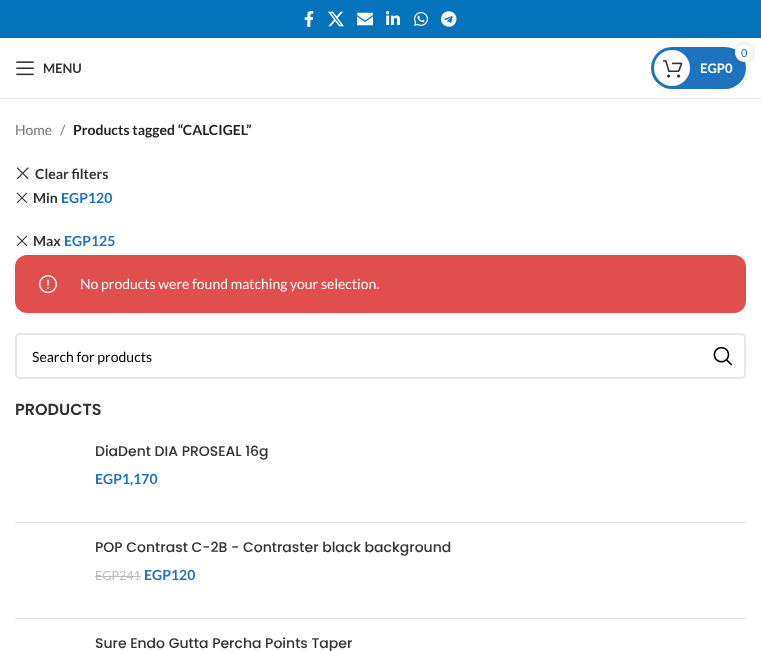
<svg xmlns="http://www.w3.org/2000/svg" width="761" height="651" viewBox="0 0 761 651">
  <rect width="100%" height="100%" fill="rgb(255,255,255)"/>
  <rect x="0" y="0" width="761" height="38" fill="rgb(4,115,187)"/>
  <image x="304" y="11" width="10" height="16" href="pic1.png"/>
  <image x="328" y="11" width="16" height="16" href="pic2.png"/>
  <image x="357" y="12" width="16" height="14" href="pic3.png"/>
  <image x="386" y="11" width="14" height="14" href="pic4.png"/>
  <image x="414" y="12" width="14" height="14" href="pic5.png"/>
  <image x="441" y="11" width="16" height="16" href="pic6.png"/>
  <rect x="0" y="98" width="761" height="1" fill="rgb(232,232,232)"/>
  <image x="16" y="61" width="18" height="15" href="pic7.png"/>
  <text x="43" y="73" font-family="Lato" font-size="13" font-weight="bold" fill="rgb(51,51,51)">MENU</text>
  <rect x="651" y="47" width="95" height="42" rx="21" fill="rgb(30,115,190)"/>
  <circle cx="672" cy="68" r="18" fill="rgb(255,255,255)"/>
  <rect x="735" y="44" width="18" height="18" rx="9" fill="rgba(0,0,0,0.17)" filter="blur(2px)"/>
  <circle cx="744" cy="53" r="9" fill="rgb(255,255,255)"/>
  <text x="741" y="57" font-family="Lato" font-size="11" fill="rgb(30,115,190)">0</text>
  <image x="663" y="60" width="20" height="18" href="pic8.png"/>
  <text x="700" y="73" font-family="Lato" font-size="13" font-weight="bold" fill="rgb(255,255,255)">EGP0</text>
  <g font-family="Lato" font-size="14" fill="rgb(118,118,118)">
    <text x="15" y="135">Home</text>
    <text x="60" y="135">/</text>
  </g>
  <text x="73" y="135" font-family="Lato" font-size="14" font-weight="bold" fill="rgb(36,36,36)">Products tagged “CALCIGEL”</text>
  <image x="16" y="167" width="13" height="13" href="pic9.png"/>
  <text x="35" y="179" font-family="Lato" font-size="14" font-weight="bold" fill="rgb(51,51,51)">Clear filters</text>
  <image x="16" y="192" width="12" height="12" href="pic10.png"/>
  <text x="33" y="203" font-family="Lato" font-size="14" font-weight="bold" fill="rgb(51,51,51)">Min</text>
  <text x="61" y="203" font-family="Lato" font-size="14" font-weight="bold" fill="rgb(30,115,190)">EGP120</text>
  <image x="16" y="235" width="12" height="12" href="pic10.png"/>
  <text x="33" y="246" font-family="Lato" font-size="14" font-weight="bold" fill="rgb(51,51,51)">Max</text>
  <text x="64" y="246" font-family="Lato" font-size="14" font-weight="bold" fill="rgb(30,115,190)">EGP125</text>
  <rect x="15" y="255" width="731" height="58" rx="12" fill="rgb(225,78,78)"/>
  <image x="39" y="275" width="18" height="19" href="pic11.png"/>
  <text x="80" y="289" font-family="Lato" font-size="14" fill="rgb(255,255,255)">No products were found matching your selection.</text>
  <rect x="16" y="334" width="729" height="44" rx="4" fill="none" stroke="rgb(230,230,230)" stroke-width="2"/>
  <text x="32" y="362" font-family="Lato" font-size="14" fill="rgb(0,0,0)">Search for products</text>
  <image x="713" y="346" width="20" height="20" href="pic12.png"/>
  <text x="15" y="415" font-family="Poppins" font-size="16" font-weight="600" fill="rgb(51,51,51)">PRODUCTS</text>
  <rect x="15" y="522" width="731" height="1" fill="rgb(228,228,228)"/>
  <text x="95" y="456" font-family="Poppins" font-size="14" font-weight="500" fill="rgb(51,51,51)">DiaDent DIA PROSEAL 16g</text>
  <text x="95" y="484" font-family="Lato" font-size="14" font-weight="bold" fill="rgb(30,115,190)">EGP1,170</text>
  <rect x="15" y="618" width="731" height="1" fill="rgb(228,228,228)"/>
  <text x="95" y="552" font-family="Poppins" font-size="14" font-weight="500" fill="rgb(51,51,51)">POP Contrast C-2B - Contraster black background</text>
  <text x="95" y="580" font-family="Lato" font-size="12.5" fill="rgb(187,187,187)">EGP241</text>
  <rect x="95" y="576" width="46" height="1" fill="rgb(187,187,187)"/>
  <text x="144" y="580" font-family="Lato" font-size="14" font-weight="bold" fill="rgb(30,115,190)">EGP120</text>
  <text x="95" y="648" font-family="Poppins" font-size="14" font-weight="500" fill="rgb(51,51,51)">Sure Endo Gutta Percha Points Taper</text>
</svg>
